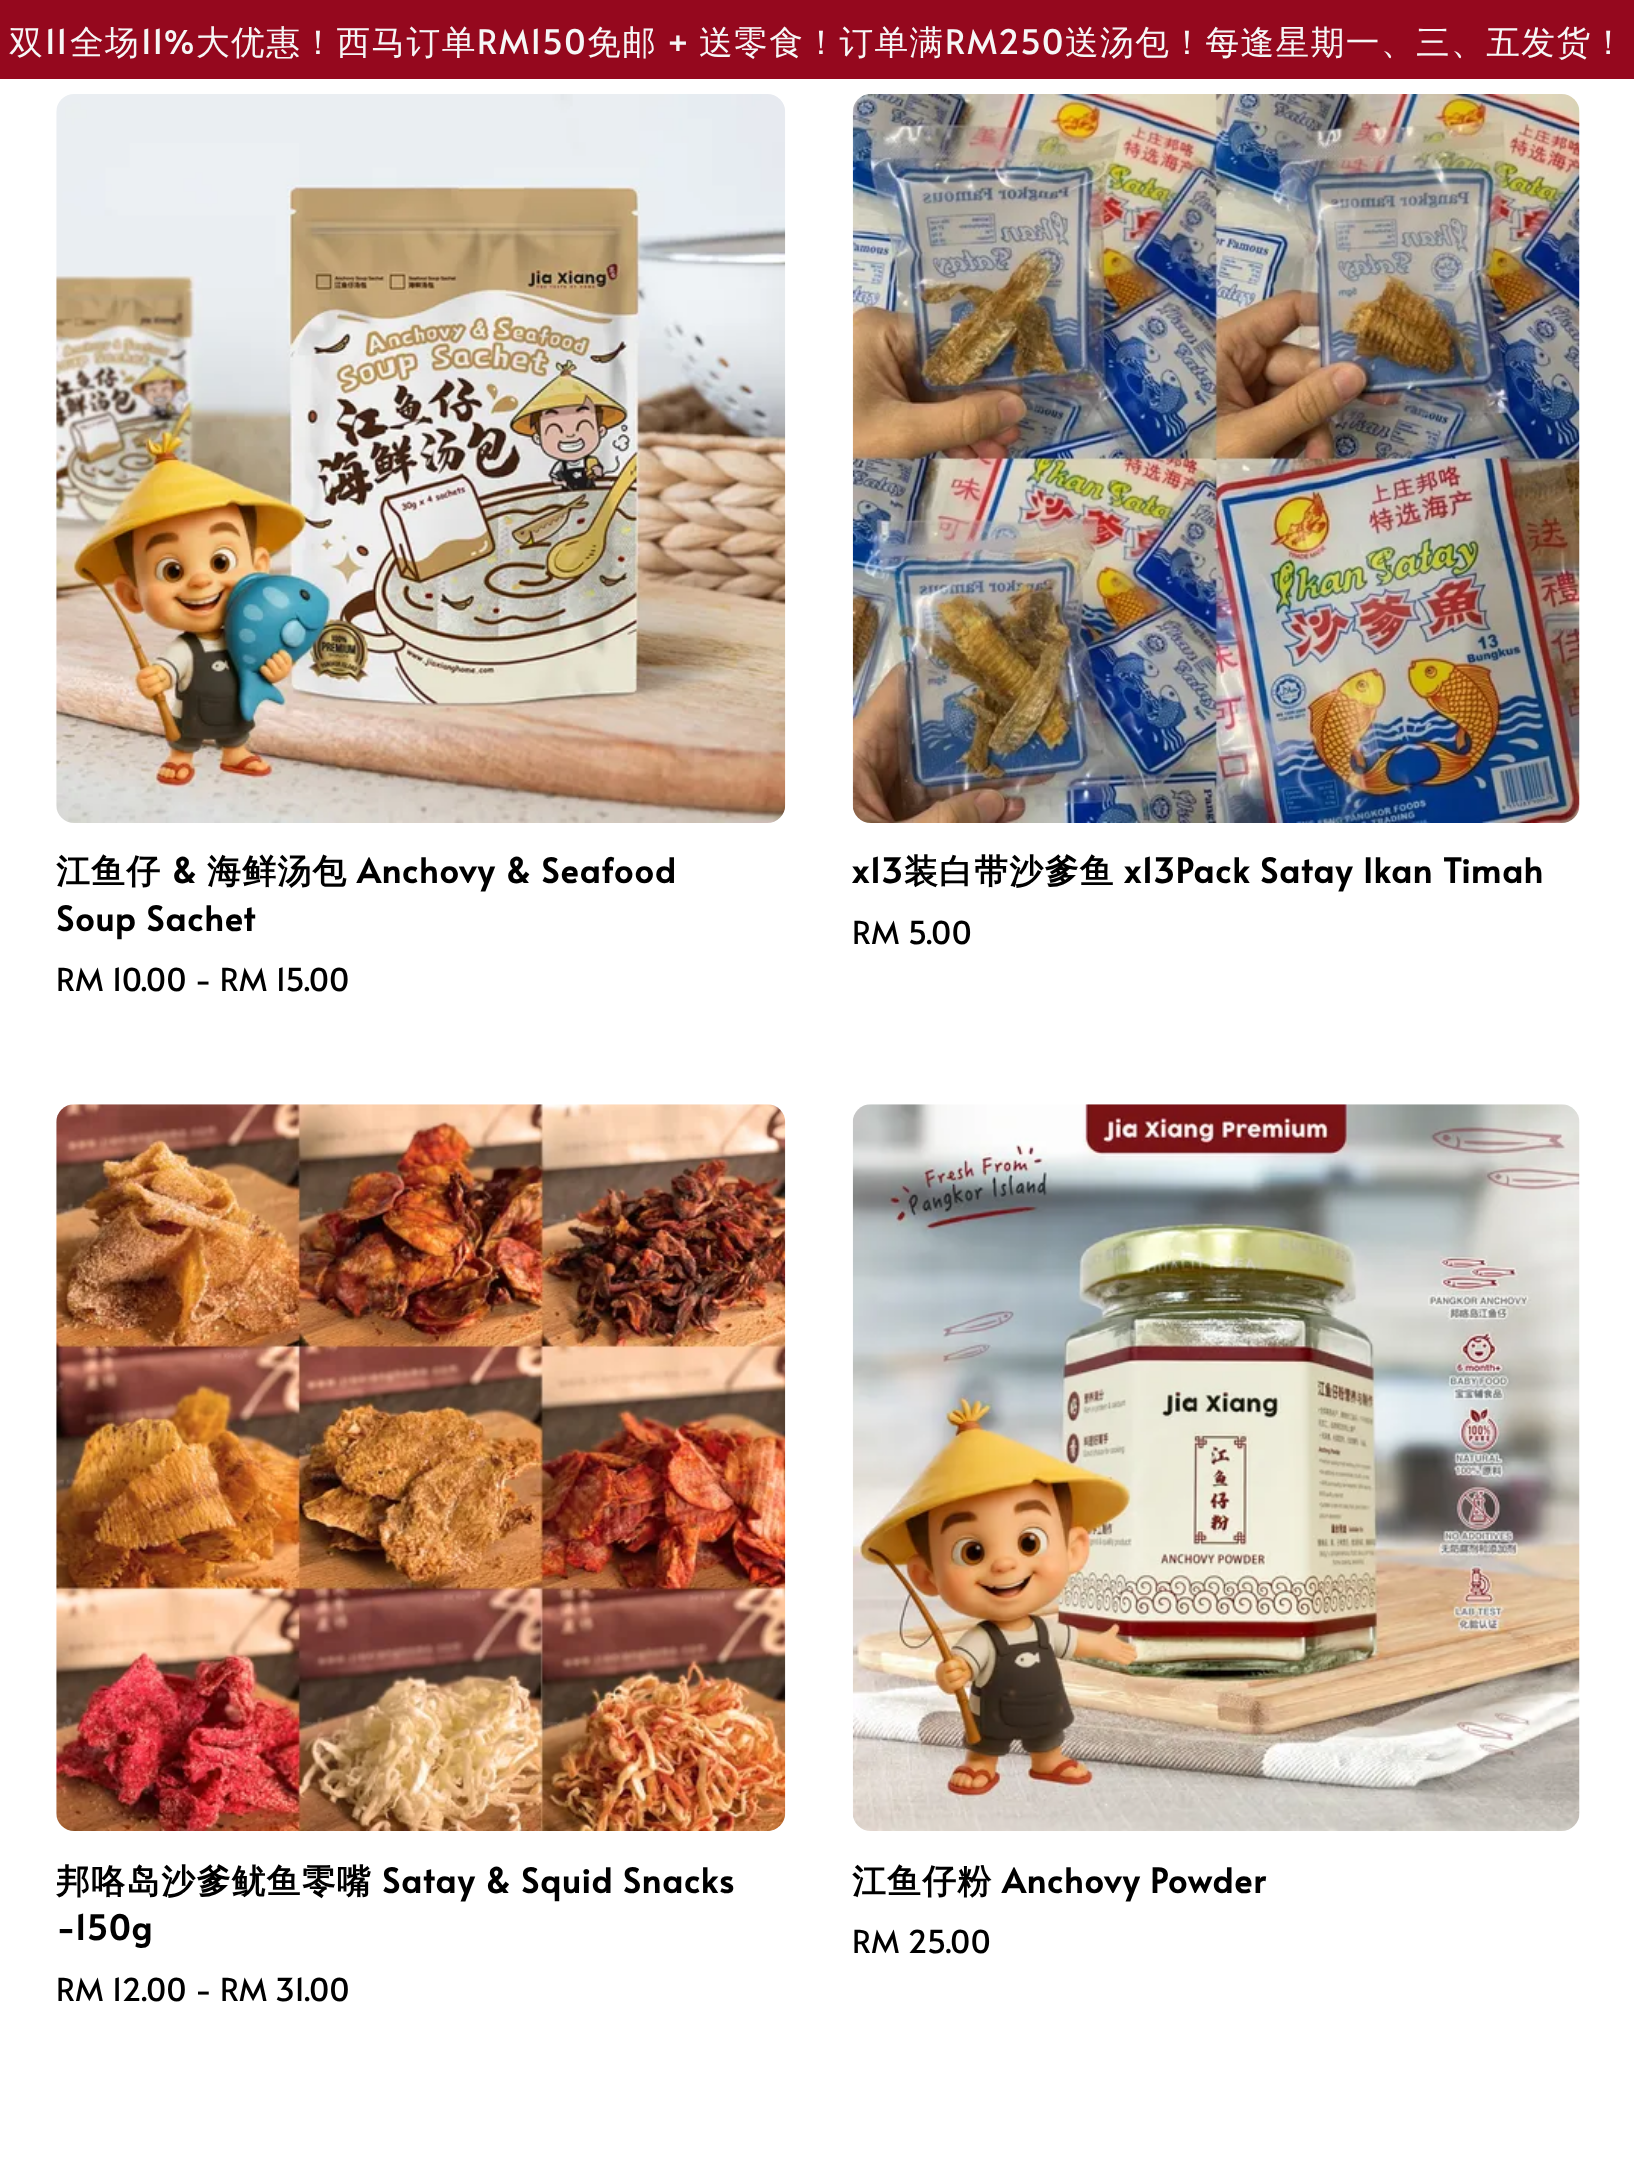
<svg xmlns="http://www.w3.org/2000/svg" width="1634" height="2171" viewBox="0 0 1634 2171">
  <rect width="100%" height="100%" fill="rgb(255,255,255)"/>
  <rect x="0" y="0" width="1634" height="79" fill="rgb(149,8,30)"/>
  <text x="9" y="54" font-family="WenQuanYi Zen Hei" font-size="33.75" font-weight="500" letter-spacing="1.35" fill="rgb(246,246,246)">双</text>
  <text x="44" y="54" font-family="Alata" font-size="33.75" letter-spacing="1.35" fill="rgb(246,246,246)">11</text>
  <text x="70" y="54" font-family="WenQuanYi Zen Hei" font-size="33.75" font-weight="500" letter-spacing="1.35" fill="rgb(246,246,246)">全场</text>
  <text x="140" y="54" font-family="Alata" font-size="33.75" letter-spacing="1.35" fill="rgb(246,246,246)">11%</text>
  <text x="196" y="54" font-family="WenQuanYi Zen Hei" font-size="33.75" font-weight="500" letter-spacing="1.35" fill="rgb(246,246,246)">大优惠！西马订单</text>
  <text x="477" y="54" font-family="Alata" font-size="33.75" letter-spacing="1.35" fill="rgb(246,246,246)">RM150</text>
  <text x="587" y="54" font-family="WenQuanYi Zen Hei" font-size="33.75" font-weight="500" letter-spacing="1.35" fill="rgb(246,246,246)">免邮</text>
  <text x="667" y="54" font-family="Alata" font-size="33.75" letter-spacing="1.35" fill="rgb(246,246,246)">+</text>
  <text x="699" y="54" font-family="WenQuanYi Zen Hei" font-size="33.75" font-weight="500" letter-spacing="1.35" fill="rgb(246,246,246)">送零食！订单满</text>
  <text x="945" y="54" font-family="Alata" font-size="33.75" letter-spacing="1.35" fill="rgb(246,246,246)">RM250</text>
  <text x="1065" y="54" font-family="WenQuanYi Zen Hei" font-size="33.75" font-weight="500" letter-spacing="1.35" fill="rgb(246,246,246)">送汤包！每逢星期一、三、五发货！</text>
  <image x="56" y="94" width="730" height="729" href="pic1.png"/>
  <text x="56" y="883" font-family="WenQuanYi Zen Hei" font-size="33.75" font-weight="bold" letter-spacing="1.35" fill="rgb(0,0,0)">江鱼仔</text>
  <text x="171" y="883" font-family="Alata" font-size="33.75" font-weight="bold" letter-spacing="1.35" fill="rgb(0,0,0)">&amp;</text>
  <text x="207" y="883" font-family="WenQuanYi Zen Hei" font-size="33.75" font-weight="bold" letter-spacing="1.35" fill="rgb(0,0,0)">海鲜汤包</text>
  <g font-family="Alata" font-size="33.75" font-weight="bold" letter-spacing="1.35" fill="rgb(0,0,0)">
    <text x="357" y="883">Anchovy &amp; Seafood</text>
    <text x="56" y="931">Soup Sachet</text>
  </g>
  <text x="56" y="991" font-family="Alata" font-size="31.5" fill="rgb(0,0,0)">RM 10.00 - RM 15.00</text>
  <image x="852" y="94" width="728" height="729" href="pic2.png"/>
  <text x="852" y="883" font-family="Alata" font-size="33.75" font-weight="bold" letter-spacing="1.35" fill="rgb(0,0,0)">x13</text>
  <text x="904" y="883" font-family="WenQuanYi Zen Hei" font-size="33.75" font-weight="bold" letter-spacing="1.35" fill="rgb(0,0,0)">装白带沙爹鱼</text>
  <text x="1124" y="883" font-family="Alata" font-size="33.75" font-weight="bold" letter-spacing="1.35" fill="rgb(0,0,0)">x13Pack Satay Ikan Timah</text>
  <text x="852" y="944" font-family="Alata" font-size="31.5" fill="rgb(0,0,0)">RM 5.00</text>
  <image x="56" y="1104" width="730" height="727" href="pic3.png"/>
  <text x="56" y="1893" font-family="WenQuanYi Zen Hei" font-size="33.75" font-weight="bold" letter-spacing="1.35" fill="rgb(0,0,0)">邦咯岛沙爹鱿鱼零嘴</text>
  <g font-family="Alata" font-size="33.75" font-weight="bold" letter-spacing="1.35" fill="rgb(0,0,0)">
    <text x="382" y="1893">Satay &amp; Squid Snacks</text>
    <text x="56" y="1940">-150g</text>
  </g>
  <text x="56" y="2001" font-family="Alata" font-size="31.5" fill="rgb(0,0,0)">RM 12.00 - RM 31.00</text>
  <image x="852" y="1104" width="728" height="727" href="pic4.png"/>
  <text x="852" y="1893" font-family="WenQuanYi Zen Hei" font-size="33.75" font-weight="bold" letter-spacing="1.35" fill="rgb(0,0,0)">江鱼仔粉</text>
  <text x="1002" y="1893" font-family="Alata" font-size="33.75" font-weight="bold" letter-spacing="1.35" fill="rgb(0,0,0)">Anchovy Powder</text>
  <text x="852" y="1953" font-family="Alata" font-size="31.5" fill="rgb(0,0,0)">RM 25.00</text>
</svg>
